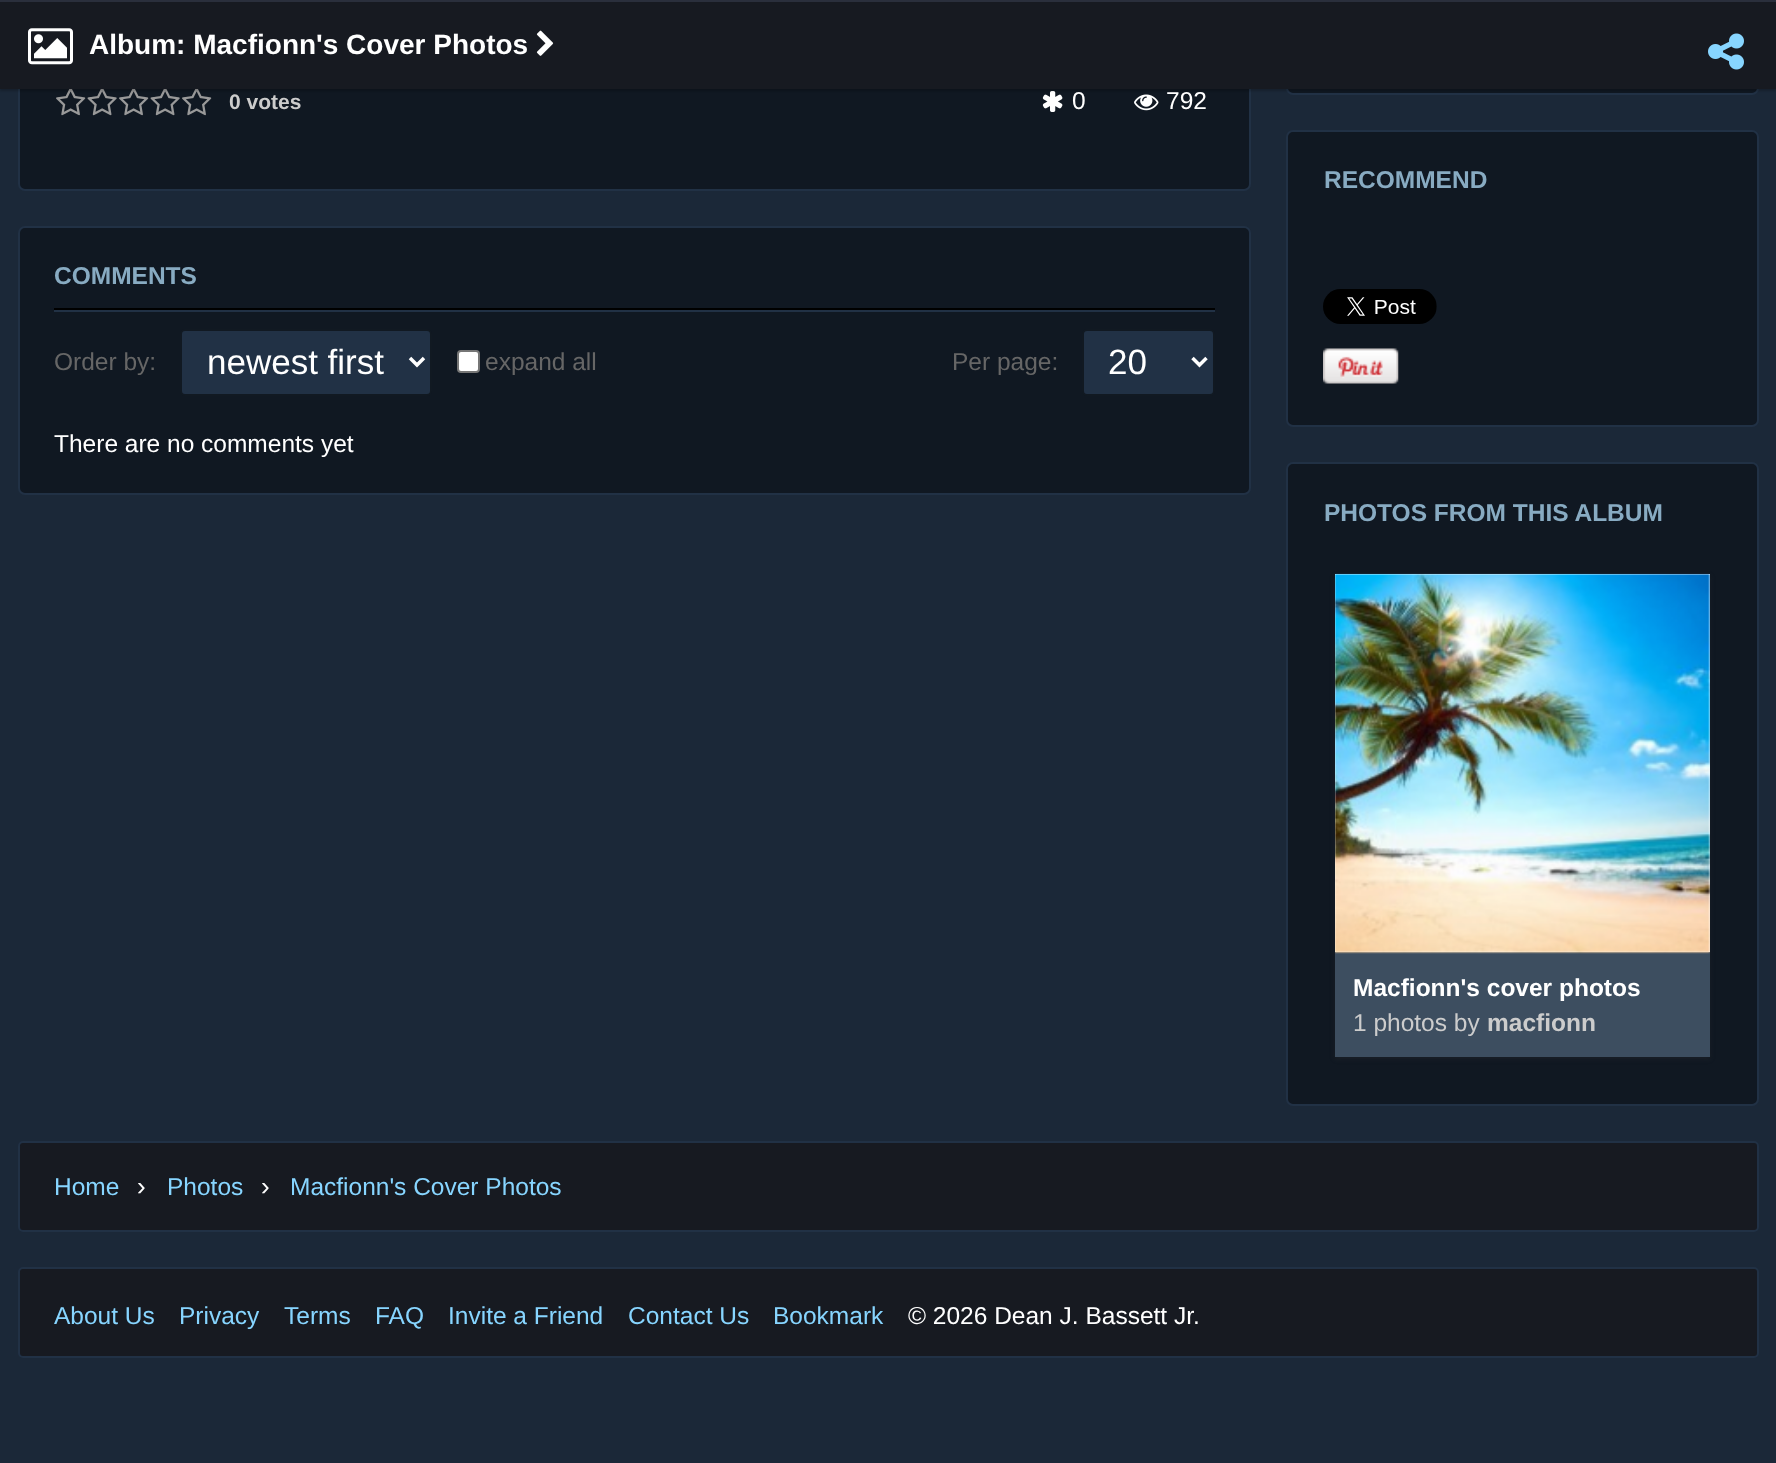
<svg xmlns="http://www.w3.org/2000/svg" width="1776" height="1463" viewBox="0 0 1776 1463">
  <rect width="100%" height="100%" fill="rgb(27,40,56)"/>
  <rect x="19" y="-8" width="1231" height="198" rx="6" fill="rgb(16,24,34)" stroke="rgb(33,49,69)" stroke-width="2"/>
  <image x="56" y="89" width="30" height="27" href="pic4.png"/>
  <image x="87" y="89" width="30" height="27" href="pic5.png"/>
  <image x="119" y="89" width="30" height="27" href="pic6.png"/>
  <image x="150" y="89" width="30" height="27" href="pic5.png"/>
  <image x="182" y="89" width="30" height="27" href="pic7.png"/>
  <image x="1042" y="91" width="21" height="21" href="pic8.png"/>
  <image x="1134" y="94" width="25" height="17" href="pic9.png"/>
  <rect x="1287" y="-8" width="471" height="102" rx="6" fill="rgb(16,24,34)" stroke="rgb(33,49,69)" stroke-width="2"/>
  <rect x="0" y="2" width="1776" height="89" fill="rgba(0,0,0,0.2)" filter="blur(1px)"/>
  <rect x="0" y="2" width="1776" height="87" fill="rgb(23,26,33)"/>
  <rect x="0" y="0" width="1776" height="2" fill="rgb(42,47,60)"/>
  <image x="28" y="28" width="45" height="37" href="pic1.png"/>
  <text x="89" y="54" font-family="Liberation Sans" font-size="28" font-weight="bold" fill="rgb(255,255,255)">Album: Macfionn's Cover Photos</text>
  <image x="536" y="30" width="18" height="26" href="pic2.png"/>
  <image x="1708" y="33" width="36" height="37" href="pic3.png"/>
  <text x="229" y="109" font-family="Liberation Sans" font-size="21" font-weight="bold" fill="rgb(204,204,204)">0 votes</text>
  <g font-family="Liberation Sans" font-size="24.5" fill="rgb(255,255,255)">
    <text x="1072" y="109">0</text>
    <text x="1166" y="109">792</text>
  </g>
  <rect x="19" y="227" width="1231" height="267" rx="6" fill="rgb(16,24,34)" stroke="rgb(33,49,69)" stroke-width="2"/>
  <text x="54" y="284" font-family="Liberation Sans" font-size="24.5" font-weight="bold" fill="rgb(136,171,194)">COMMENTS</text>
  <rect x="54" y="308" width="1161" height="2" fill="rgb(0,0,0)"/>
  <rect x="54" y="310" width="1161" height="2" fill="rgb(33,49,69)"/>
  <text x="54" y="370" font-family="Liberation Sans" font-size="24.5" fill="rgb(102,102,102)">Order by:</text>
  <rect x="181" y="330" width="250" height="65" rx="4" fill="rgb(33,49,69)" stroke="rgb(17,25,34)" stroke-width="2"/>
  <path d="M410 358L417 365L424 358" fill="none" stroke="rgb(255,255,255)" stroke-width="3.5"/>
  <text x="207" y="374" font-family="Liberation Sans" font-size="35" fill="rgb(255,255,255)">newest first</text>
  <rect x="458" y="351" width="21" height="21" rx="3" fill="rgb(255,255,255)" stroke="rgb(118,118,118)" stroke-width="2"/>
  <g font-family="Liberation Sans" font-size="24.5" fill="rgb(102,102,102)">
    <text x="485" y="370">expand all</text>
    <text x="952" y="370">Per page:</text>
  </g>
  <rect x="1083" y="330" width="131" height="65" rx="4" fill="rgb(33,49,69)" stroke="rgb(17,25,34)" stroke-width="2"/>
  <path d="M1192.5 358L1199.5 365L1206.5 358" fill="none" stroke="rgb(255,255,255)" stroke-width="3.5"/>
  <text x="1108" y="374" font-family="Liberation Sans" font-size="35" fill="rgb(255,255,255)">20</text>
  <text x="54" y="452" font-family="Liberation Sans" font-size="24.5" fill="rgb(255,255,255)">There are no comments yet</text>
  <rect x="1287" y="131" width="471" height="295" rx="6" fill="rgb(16,24,34)" stroke="rgb(33,49,69)" stroke-width="2"/>
  <text x="1324" y="188" font-family="Liberation Sans" font-size="24.5" font-weight="bold" fill="rgb(136,171,194)">RECOMMEND</text>
  <image x="1323" y="289" width="114" height="35" href="pic10.png"/>
  <image x="1323" y="348" width="76" height="36" href="pic11.png"/>
  <rect x="1287" y="463" width="471" height="642" rx="6" fill="rgb(16,24,34)" stroke="rgb(33,49,69)" stroke-width="2"/>
  <text x="1324" y="521" font-family="Liberation Sans" font-size="24.5" font-weight="bold" fill="rgb(136,171,194)">PHOTOS FROM THIS ALBUM</text>
  <rect x="1335" y="576" width="375" height="483" fill="rgba(51,51,51,0.3)" filter="blur(2.5px)"/>
  <rect x="1335" y="574" width="375" height="378" fill="rgb(255,255,255)"/>
  <rect x="1335" y="952" width="375" height="105" fill="rgb(61,78,96)"/>
  <image x="1335" y="573" width="375" height="381" href="pic12.png"/>
  <text x="1353" y="996" font-family="Liberation Sans" font-size="24.5" font-weight="bold" fill="rgb(255,255,255)">Macfionn's cover photos</text>
  <text x="1353" y="1031" font-family="Liberation Sans" font-size="24.5" fill="rgb(204,204,204)">1 photos by</text>
  <text x="1487" y="1031" font-family="Liberation Sans" font-size="24.5" font-weight="bold" fill="rgb(204,204,204)">macfionn</text>
  <rect x="19" y="1142" width="1739" height="89" rx="4" fill="rgb(23,26,33)" stroke="rgb(33,49,69)" stroke-width="2"/>
  <text x="54" y="1195" font-family="Liberation Sans" font-size="24.5" fill="rgb(135,213,255)">Home</text>
  <text x="137" y="1195" font-family="Liberation Sans" font-size="26" fill="rgb(255,255,255)">›</text>
  <text x="167" y="1195" font-family="Liberation Sans" font-size="24.5" fill="rgb(135,213,255)">Photos</text>
  <text x="261" y="1195" font-family="Liberation Sans" font-size="26" fill="rgb(255,255,255)">›</text>
  <text x="290" y="1195" font-family="Liberation Sans" font-size="24.5" fill="rgb(135,213,255)">Macfionn's Cover Photos</text>
  <rect x="19" y="1268" width="1739" height="89" rx="4" fill="rgb(23,26,33)" stroke="rgb(33,49,69)" stroke-width="2"/>
  <g font-family="Liberation Sans" font-size="24.5" fill="rgb(135,213,255)">
    <text x="54" y="1324">About Us</text>
    <text x="179" y="1324">Privacy</text>
    <text x="284" y="1324">Terms</text>
    <text x="375" y="1324">FAQ</text>
    <text x="448" y="1324">Invite a Friend</text>
    <text x="628" y="1324">Contact Us</text>
    <text x="773" y="1324">Bookmark</text>
  </g>
  <text x="908" y="1324" font-family="Liberation Sans" font-size="24.5" fill="rgb(255,255,255)">© 2026 Dean J. Bassett Jr.</text>
</svg>
